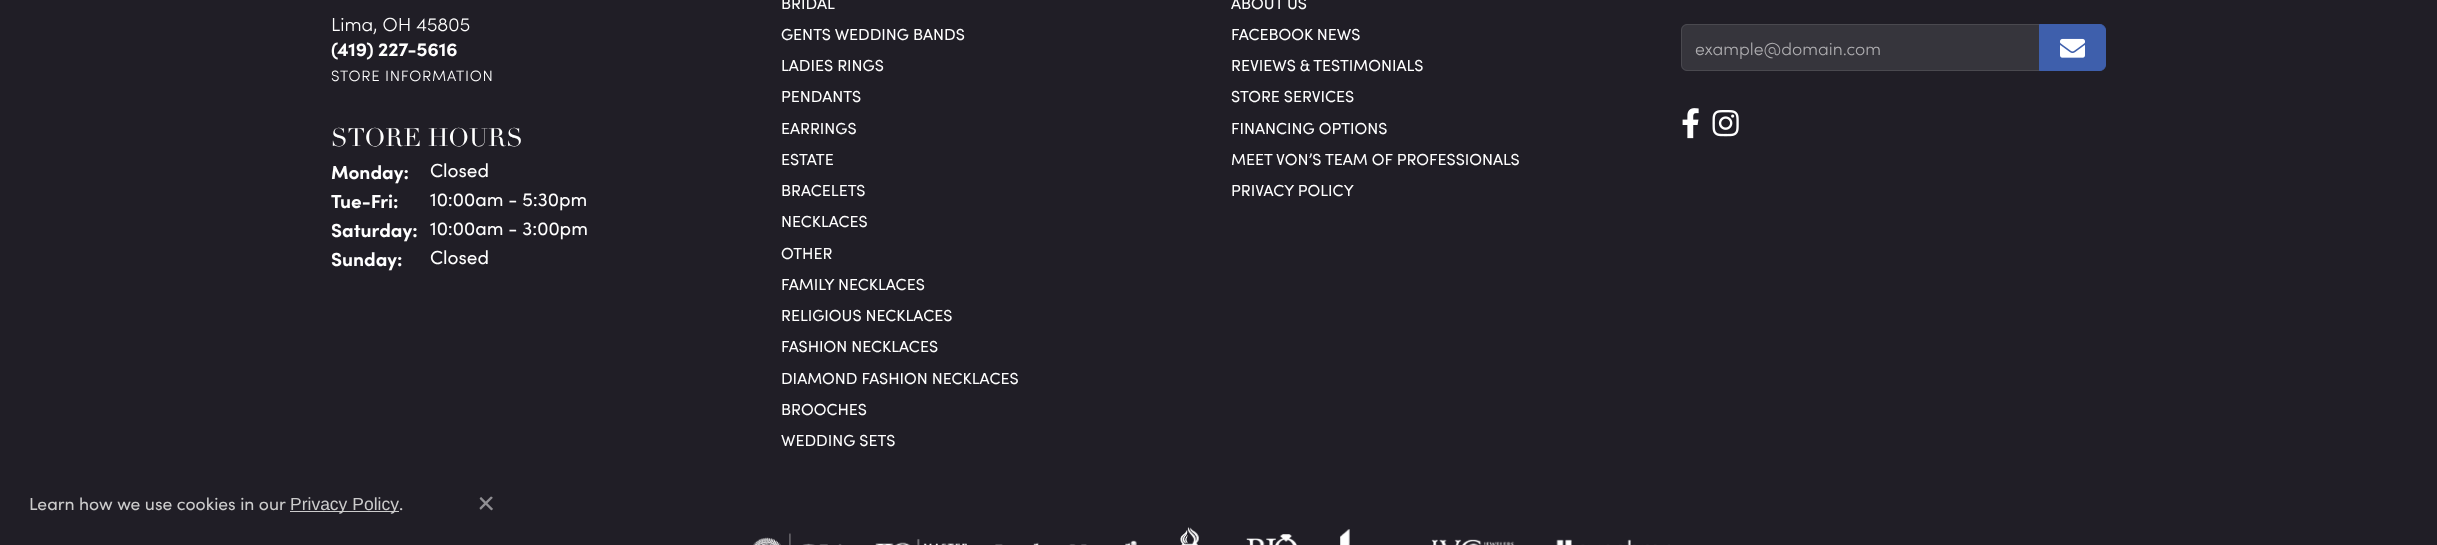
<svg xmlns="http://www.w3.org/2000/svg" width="2437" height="545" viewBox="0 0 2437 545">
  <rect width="100%" height="100%" fill="rgb(32,30,38)"/>
  <text x="331" y="31" font-family="Sofia" font-size="19" font-weight="300" fill="rgb(255,255,255)">Lima, OH 45805</text>
  <text x="331" y="56" font-family="Sofia" font-size="19" font-weight="bold" fill="rgb(255,255,255)">(419) 227-5616</text>
  <text x="331" y="81" font-family="Sofia" font-size="15" font-weight="300" letter-spacing="0.75" fill="rgb(255,255,255)">STORE INFORMATION</text>
  <text x="331" y="146" font-family="Didot" font-size="25" fill="rgb(255,255,255)">STORE HOURS</text>
  <text x="331" y="179" font-family="Sofia" font-size="19" font-weight="bold" fill="rgb(255,255,255)">Monday:</text>
  <text x="430" y="177" font-family="Sofia" font-size="19" fill="rgb(255,255,255)">Closed</text>
  <text x="331" y="208" font-family="Sofia" font-size="19" font-weight="bold" fill="rgb(255,255,255)">Tue-Fri:</text>
  <text x="430" y="206" font-family="Sofia" font-size="19" fill="rgb(255,255,255)">10:00am - 5:30pm</text>
  <text x="331" y="237" font-family="Sofia" font-size="19" font-weight="bold" fill="rgb(255,255,255)">Saturday:</text>
  <text x="430" y="235" font-family="Sofia" font-size="19" fill="rgb(255,255,255)">10:00am - 3:00pm</text>
  <text x="331" y="266" font-family="Sofia" font-size="19" font-weight="bold" fill="rgb(255,255,255)">Sunday:</text>
  <text x="430" y="264" font-family="Sofia" font-size="19" fill="rgb(255,255,255)">Closed</text>
  <g font-family="Sofia" font-size="16" fill="rgb(255,255,255)">
    <text>
      <tspan x="781" y="9">BRIDAL</tspan>
      <tspan x="781" y="40">GENTS WEDDING BANDS</tspan>
      <tspan x="781" y="71">LADIES RINGS</tspan>
      <tspan x="781" y="102">PENDANTS</tspan>
    </text>
    <text>
      <tspan x="781" y="134">EARRINGS</tspan>
      <tspan x="781" y="165">ESTATE</tspan>
      <tspan x="781" y="196">BRACELETS</tspan>
      <tspan x="781" y="227">NECKLACES</tspan>
    </text>
    <text>
      <tspan x="781" y="259">OTHER</tspan>
      <tspan x="781" y="290">FAMILY NECKLACES</tspan>
      <tspan x="781" y="321">RELIGIOUS NECKLACES</tspan>
      <tspan x="781" y="352">FASHION NECKLACES</tspan>
    </text>
    <text>
      <tspan x="781" y="384">DIAMOND FASHION NECKLACES</tspan>
      <tspan x="781" y="415">BROOCHES</tspan>
      <tspan x="781" y="446">WEDDING SETS</tspan>
    </text>
    <text>
      <tspan x="1231" y="9">ABOUT US</tspan>
      <tspan x="1231" y="40">FACEBOOK NEWS</tspan>
      <tspan x="1231" y="71">REVIEWS &amp; TESTIMONIALS</tspan>
      <tspan x="1231" y="102">STORE SERVICES</tspan>
    </text>
    <text>
      <tspan x="1231" y="134">FINANCING OPTIONS</tspan>
      <tspan x="1231" y="165">MEET VON’S TEAM OF PROFESSIONALS</tspan>
      <tspan x="1231" y="196">PRIVACY POLICY</tspan>
    </text>
  </g>
  <path d="M1687 24H2040V71H1687C1683.5 71 1681 68.5 1681 65V30C1681 26.5 1683.5 24 1687 24Z" fill="rgb(54,53,60)"/>
  <path d="M1687 24.5H2039.5V70.5H1687C1684 70.5 1681.5 68 1681.5 65V30C1681.5 27 1684 24.5 1687 24.5Z" fill="none" stroke="rgba(255,255,255,0.1)"/>
  <text x="1695" y="55" font-family="Sofia" font-size="17.5" font-weight="300" fill="rgb(175,174,177)">example@domain.com</text>
  <path d="M2039.5 24.5H2100C2103 24.5 2105.5 27 2105.5 30V65C2105.5 68 2103 70.5 2100 70.5H2039.5Z" fill="rgb(62,95,172)" stroke="rgb(62,95,172)"/>
  <image x="2060" y="38" width="25" height="20" href="pic1.png"/>
  <image x="1682" y="108" width="17" height="31" href="pic2.png"/>
  <image x="1712" y="110" width="27" height="27" href="pic3.png"/>
  <image x="753" y="533" width="89" height="12" href="pic4.png"/>
  <image x="875" y="539" width="92" height="6" href="pic5.png"/>
  <image x="995" y="540" width="142" height="5" href="pic6.png"/>
  <image x="1180" y="527" width="19" height="18" href="pic7.png"/>
  <image x="1246" y="534" width="52" height="11" href="pic8.png"/>
  <image x="1340" y="529" width="10" height="16" href="pic9.png"/>
  <image x="1431" y="539" width="84" height="6" href="pic10.png"/>
  <image x="1556" y="539" width="114" height="6" href="pic11.png"/>
  <text x="29" y="510" font-family="Sofia" font-size="17.5" fill="rgb(204,204,204)">Learn how we use cookies in our</text>
  <rect x="290" y="511" width="109" height="1" fill="rgb(204,204,204)"/>
  <text x="290" y="510" font-family="Liberation Sans" font-size="17.5" fill="rgb(204,204,204)">Privacy Policy</text>
  <text x="399" y="510" font-family="Sofia" font-size="17.5" fill="rgb(204,204,204)">.</text>
  <image x="479" y="496" width="14" height="15" href="pic12.png"/>
</svg>
